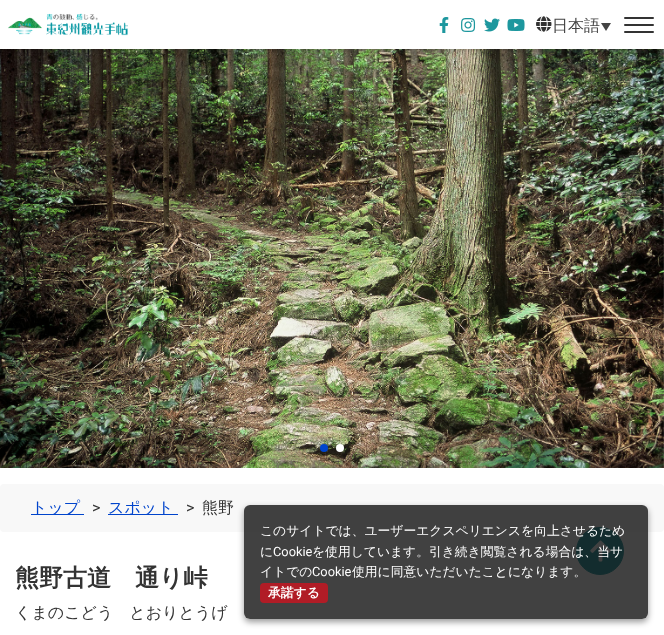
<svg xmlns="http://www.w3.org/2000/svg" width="664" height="635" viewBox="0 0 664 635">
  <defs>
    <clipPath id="clip1"><path d="M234 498H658V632H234ZM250 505H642C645.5 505 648 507.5 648 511V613C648 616.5 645.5 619 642 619H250C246.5 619 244 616.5 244 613V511C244 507.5 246.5 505 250 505Z" clip-rule="evenodd"/></clipPath>
  </defs>
  <rect width="100%" height="100%" fill="rgb(255,255,255)"/>
  <image x="0" y="49" width="664" height="419" href="pic7.png"/>
  <rect x="0" y="3" width="664" height="49" fill="rgba(0,0,0,0.16)" filter="blur(3px)"/>
  <rect x="0" y="0" width="664" height="49" fill="rgb(255,255,255)"/>
  <image x="8" y="13" width="120" height="23" href="pic1.png"/>
  <image x="439" y="17" width="10" height="16" href="pic2.png"/>
  <image x="461" y="18" width="15" height="14" href="pic3.png"/>
  <image x="484" y="18" width="16" height="14" href="pic4.png"/>
  <image x="507" y="19" width="18" height="12" href="pic5.png"/>
  <image x="536" y="16" width="16" height="16" href="pic6.png"/>
  <text x="552" y="31" font-family="WenQuanYi Zen Hei" font-size="16" font-weight="500" fill="rgb(68,68,68)">日本語</text>
  <path d="M601 23H611L606 31Z" fill="rgb(68,68,68)"/>
  <rect x="624" y="24" width="30" height="2" rx="1" fill="rgb(51,51,51)"/>
  <rect x="624" y="17" width="30" height="2" rx="1" fill="rgb(51,51,51)"/>
  <rect x="624" y="31" width="30" height="2" rx="1" fill="rgb(51,51,51)"/>
  <circle cx="324" cy="448" r="4" fill="rgb(0,68,204)"/>
  <circle cx="340" cy="448" r="4" fill="rgb(255,255,255)"/>
  <rect x="0" y="484" width="664" height="48" rx="4" fill="rgb(248,248,248)"/>
  <rect x="31" y="514" width="49" height="1" fill="rgb(0,68,204)"/>
  <text x="31" y="513" font-family="WenQuanYi Zen Hei" font-size="16" font-weight="500" fill="rgb(0,68,204)">トップ</text>
  <rect x="80" y="514" width="4" height="1" fill="rgb(0,68,204)"/>
  <text x="92" y="513" font-family="Roboto" font-size="16" fill="rgb(51,51,51)">&gt;</text>
  <rect x="108" y="514" width="70" height="1" fill="rgb(0,68,204)"/>
  <text x="108" y="513" font-family="WenQuanYi Zen Hei" font-size="16" font-weight="500" fill="rgb(0,68,204)">スポット</text>
  <text x="186" y="513" font-family="Roboto" font-size="16" fill="rgb(51,51,51)">&gt;</text>
  <text x="202" y="513" font-family="WenQuanYi Zen Hei" font-size="16" font-weight="500" fill="rgb(51,51,51)">熊野</text>
  <text x="15" y="586" font-family="WenQuanYi Zen Hei" font-size="24" font-weight="bold" fill="rgb(51,51,51)">熊野古道　通り峠</text>
  <text x="15" y="618" font-family="WenQuanYi Zen Hei" font-size="16" font-weight="500" fill="rgb(51,51,51)">くまのこどう　とおりとうげ</text>
  <circle cx="600" cy="551" r="23.5" fill="rgb(29,151,158)" stroke="rgb(29,151,158)"/>
  <image x="590" y="540" width="21" height="22" href="pic8.png"/>
  <g clip-path="url(#clip1)">
    <rect x="244" y="508" width="404" height="114" rx="6" fill="rgba(0,0,0,0.4)" filter="blur(3px)"/>
  </g>
  <rect x="244" y="505" width="404" height="114" rx="6" fill="rgba(17,17,17,0.8)"/>
  <g font-family="WenQuanYi Zen Hei" font-size="12.8" font-weight="500" fill="rgb(255,255,255)">
    <text>
      <tspan x="260" y="535">このサイトでは、ユーザーエクスペリエンスを向上させるため</tspan>
      <tspan x="260" y="556">に</tspan>
    </text>
  </g>
  <text x="273" y="556" font-family="Roboto" font-size="12.8" fill="rgb(255,255,255)">Cookie</text>
  <g font-family="WenQuanYi Zen Hei" font-size="12.8" font-weight="500" fill="rgb(255,255,255)">
    <text x="312" y="556">を使用しています。引き続き閲覧される場合は、当サ</text>
    <text x="260" y="576">イトでの</text>
  </g>
  <text x="312" y="576" font-family="Roboto" font-size="12.8" fill="rgb(255,255,255)">Cookie</text>
  <text x="352" y="576" font-family="WenQuanYi Zen Hei" font-size="12.8" font-weight="500" fill="rgb(255,255,255)">使用に同意いただいたことになります。</text>
  <rect x="260" y="583" width="68" height="20" rx="4" fill="rgb(177,28,38)"/>
  <text x="268" y="597" font-family="WenQuanYi Zen Hei" font-size="12.8" font-weight="bold" fill="rgb(255,255,255)">承諾する</text>
</svg>
